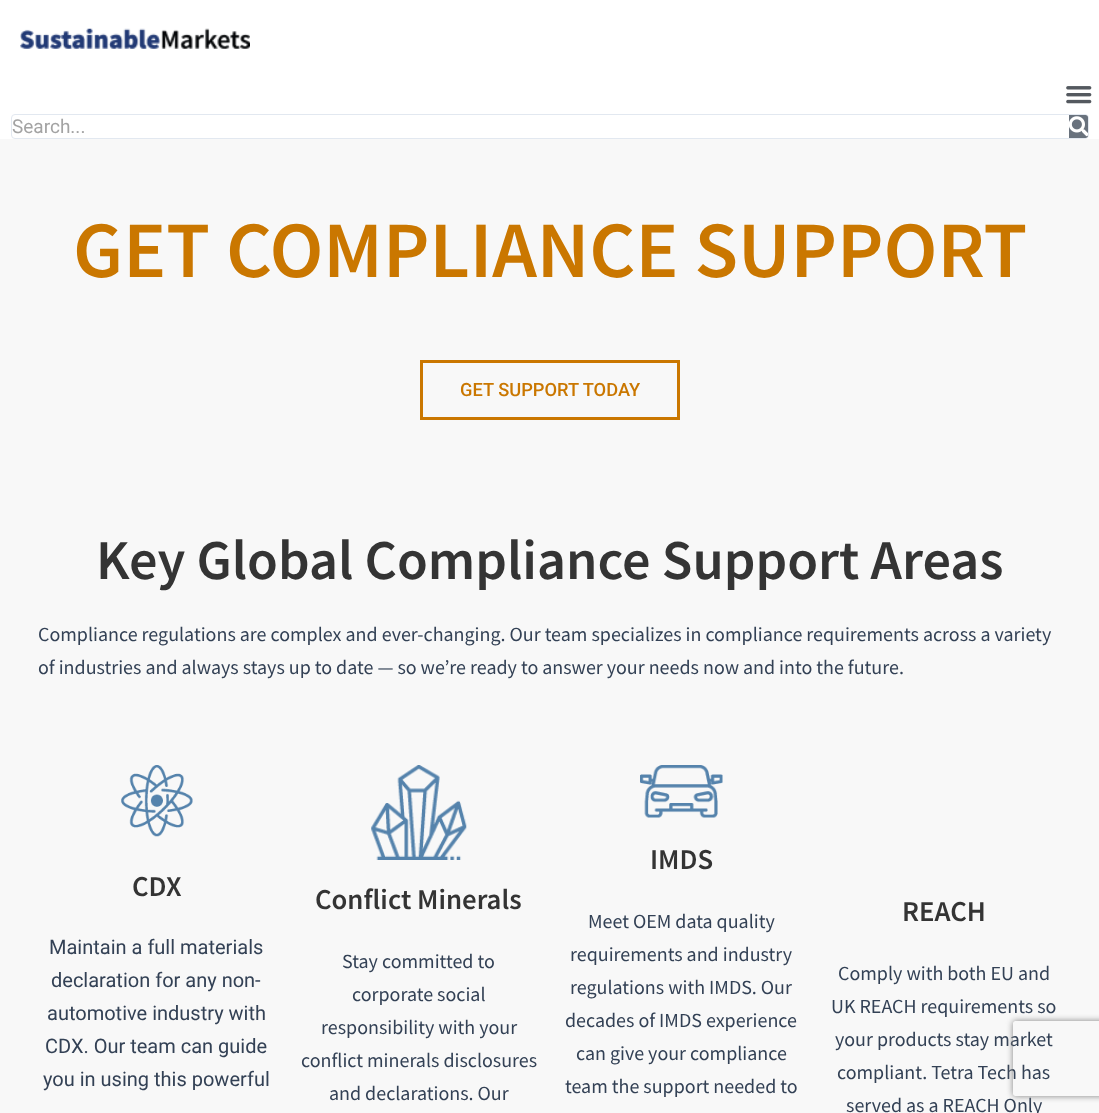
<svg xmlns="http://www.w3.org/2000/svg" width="1099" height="1113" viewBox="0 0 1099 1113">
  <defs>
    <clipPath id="clip1"><path d="M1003 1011H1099V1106H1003ZM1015.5 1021H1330.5C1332 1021 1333 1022 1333 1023.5V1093.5C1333 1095 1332 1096 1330.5 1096H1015.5C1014 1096 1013 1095 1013 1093.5V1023.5C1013 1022 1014 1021 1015.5 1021Z" clip-rule="evenodd"/></clipPath>
  </defs>
  <rect width="100%" height="100%" fill="rgb(248,248,248)"/>
  <rect x="0" y="0" width="1099" height="139" fill="rgb(255,255,255)"/>
  <image x="20" y="28" width="230" height="21" href="pic1.png"/>
  <image x="1066" y="86" width="26" height="18" href="pic2.png"/>
  <rect x="11.5" y="114.5" width="1077" height="24" rx="3.5" fill="none" stroke="rgb(226,232,240)"/>
  <text x="12" y="133" font-family="Roboto" font-size="19" fill="rgb(163,163,163)">Search...</text>
  <path d="M1069 115H1085.5C1087 115 1088 116 1088 117.5V135.5C1088 137 1087 138 1085.5 138H1069Z" fill="rgb(105,114,125)"/>
  <image x="1069" y="116" width="19" height="21" href="pic3.png"/>
  <text x="73" y="277" font-family="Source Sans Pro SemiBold" font-size="80" font-weight="600" fill="rgb(202,119,0)">GET COMPLIANCE SUPPORT</text>
  <rect x="421.5" y="361.5" width="257" height="57" fill="none" stroke="rgb(202,119,0)" stroke-width="3"/>
  <text x="460" y="396" font-family="Roboto" font-size="18.25" font-weight="500" fill="rgb(202,119,0)">GET SUPPORT TODAY</text>
  <text x="96" y="579" font-family="Source Sans Pro SemiBold" font-size="56.25" font-weight="600" fill="rgb(52,52,52)">Key Global Compliance Support Areas</text>
  <g font-family="Source Sans Pro" font-size="20" fill="rgb(51,65,85)">
    <text>
      <tspan x="38" y="641">Compliance regulations are complex and ever-changing. Our team specializes in compliance requirements across a variety</tspan>
      <tspan x="38" y="674">of industries and always stays up to date — so we’re ready to answer your needs now and into the future.</tspan>
    </text>
  </g>
  <image x="121" y="765" width="72" height="72" href="pic4.png"/>
  <text x="132" y="896" font-family="Source Sans Pro SemiBold" font-size="28.75" font-weight="600" fill="rgb(52,52,52)">CDX</text>
  <g font-family="Roboto" font-size="20" fill="rgb(51,65,85)">
    <text x="49" y="954">Maintain a full materials</text>
    <text x="51" y="987">declaration for any non-</text>
    <text x="47" y="1020">automotive industry with</text>
    <text x="45" y="1053">CDX. Our team can guide</text>
    <text x="43" y="1086">you in using this powerful</text>
  </g>
  <image x="371" y="765" width="96" height="95" href="pic5.png"/>
  <text x="315" y="909" font-family="Source Sans Pro SemiBold" font-size="28.75" font-weight="600" fill="rgb(52,52,52)">Conflict Minerals</text>
  <g font-family="Source Sans Pro" font-size="20" fill="rgb(51,65,85)">
    <text x="342" y="968">Stay committed to</text>
    <text x="352" y="1001">corporate social</text>
    <text x="321" y="1034">responsibility with your</text>
    <text x="301" y="1067">conflict minerals disclosures</text>
    <text x="329" y="1100">and declarations. Our</text>
  </g>
  <image x="640" y="765" width="83" height="53" href="pic6.png"/>
  <text x="650" y="869" font-family="Source Sans Pro SemiBold" font-size="28.75" font-weight="600" fill="rgb(52,52,52)">IMDS</text>
  <g font-family="Source Sans Pro" font-size="20" fill="rgb(51,65,85)">
    <text x="588" y="928">Meet OEM data quality</text>
    <text>
      <tspan x="570" y="961">requirements and industry</tspan>
      <tspan x="570" y="994">regulations with IMDS. Our</tspan>
    </text>
    <text x="565" y="1027">decades of IMDS experience</text>
    <text x="576" y="1060">can give your compliance</text>
    <text x="565" y="1093">team the support needed to</text>
  </g>
  <text x="902" y="921" font-family="Source Sans Pro SemiBold" font-size="28.75" font-weight="600" fill="rgb(52,52,52)">REACH</text>
  <g font-family="Source Sans Pro" font-size="20" fill="rgb(51,65,85)">
    <text x="838" y="980">Comply with both EU and</text>
    <text x="831" y="1013">UK REACH requirements so</text>
    <text x="835" y="1046">your products stay market</text>
    <text x="837" y="1079">compliant. Tetra Tech has</text>
    <text x="846" y="1112">served as a REACH Only</text>
  </g>
  <g clip-path="url(#clip1)">
    <rect x="1013" y="1021" width="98" height="75" rx="2.5" fill="rgb(128,128,128)" filter="blur(3px)"/>
  </g>
</svg>
